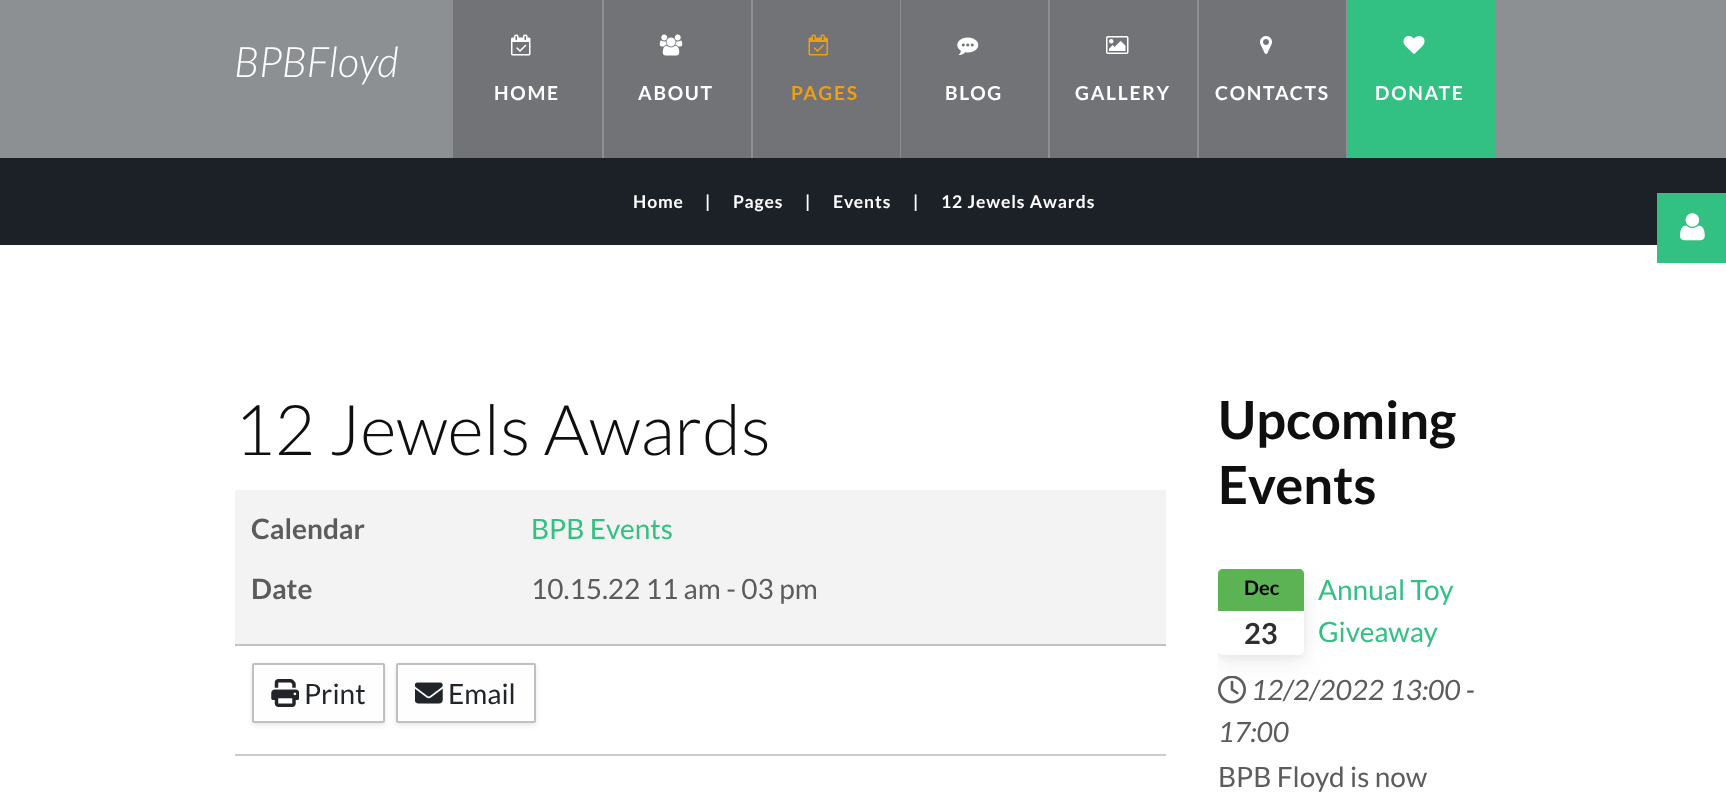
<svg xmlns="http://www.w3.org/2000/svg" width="1726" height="809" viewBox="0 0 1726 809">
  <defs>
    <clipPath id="clip1"><rect x="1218" y="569" width="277" height="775"/></clipPath>
  </defs>
  <rect width="100%" height="100%" fill="rgb(255,255,255)"/>
  <rect x="0" y="0" width="1726" height="158" fill="rgb(141,144,147)"/>
  <text x="234" y="77" font-family="Lato" font-size="42" font-weight="300" font-style="italic" fill="rgb(255,255,255)">BPBFloyd</text>
  <rect x="453" y="0" width="149" height="158" fill="rgb(113,115,118)"/>
  <image x="511" y="34" width="20" height="22" href="pic1.png"/>
  <text x="494" y="100" font-family="Lato" font-size="19.25" font-weight="bold" letter-spacing="1.75" fill="rgb(255,255,255)">HOME</text>
  <rect x="604" y="0" width="147" height="158" fill="rgb(113,115,118)"/>
  <image x="659" y="34" width="24" height="22" href="pic2.png"/>
  <text x="638" y="100" font-family="Lato" font-size="19.25" font-weight="bold" letter-spacing="1.75" fill="rgb(255,255,255)">ABOUT</text>
  <rect x="753" y="0" width="147" height="158" fill="rgb(113,115,118)"/>
  <image x="808" y="34" width="20" height="22" href="pic3.png"/>
  <text x="791" y="100" font-family="Lato" font-size="19.25" font-weight="bold" letter-spacing="1.75" fill="rgb(239,159,19)">PAGES</text>
  <rect x="901" y="0" width="147" height="158" fill="rgb(113,115,118)"/>
  <image x="957" y="37" width="22" height="19" href="pic4.png"/>
  <text x="945" y="100" font-family="Lato" font-size="19.25" font-weight="bold" letter-spacing="1.75" fill="rgb(255,255,255)">BLOG</text>
  <rect x="1050" y="0" width="147" height="158" fill="rgb(113,115,118)"/>
  <image x="1106" y="36" width="23" height="18" href="pic5.png"/>
  <text x="1075" y="100" font-family="Lato" font-size="19.25" font-weight="bold" letter-spacing="1.75" fill="rgb(255,255,255)">GALLERY</text>
  <rect x="1199" y="0" width="147" height="158" fill="rgb(113,115,118)"/>
  <image x="1260" y="36" width="12" height="18" href="pic6.png"/>
  <text x="1215" y="100" font-family="Lato" font-size="19.25" font-weight="bold" letter-spacing="1.75" fill="rgb(255,255,255)">CONTACTS</text>
  <rect x="1348" y="0" width="147" height="158" fill="rgb(50,192,131)"/>
  <image x="1403" y="36" width="22" height="18" href="pic7.png"/>
  <text x="1375" y="100" font-family="Lato" font-size="19.25" font-weight="bold" letter-spacing="1.75" fill="rgb(255,255,255)">DONATE</text>
  <rect x="0" y="158" width="1726" height="87" fill="rgb(27,33,38)"/>
  <g font-family="Lato" font-size="17.5" font-weight="bold" letter-spacing="0.9" fill="rgb(255,255,255)">
    <text x="633" y="208">Home</text>
    <text x="705" y="208">|</text>
    <text x="733" y="208">Pages</text>
    <text x="805" y="208">|</text>
    <text x="833" y="208">Events</text>
    <text x="913" y="208">|</text>
    <text x="941" y="208">12 Jewels Awards</text>
  </g>
  <rect x="1657" y="193" width="69" height="70" fill="rgb(50,192,131)"/>
  <image x="1680" y="213" width="25" height="28" href="pic8.png"/>
  <text x="234" y="455" font-family="Lato" font-size="70" font-weight="300" fill="rgb(15,15,15)">12 Jewels Awards</text>
  <rect x="235" y="490" width="931" height="154" fill="rgb(243,243,243)"/>
  <rect x="235" y="644" width="931" height="2" fill="rgb(194,194,194)"/>
  <text x="251" y="539" font-family="Lato" font-size="28" font-weight="bold" fill="rgb(92,92,92)">Calendar</text>
  <text x="531" y="539" font-family="Lato" font-size="28" fill="rgb(50,192,131)">BPB Events</text>
  <text x="251" y="599" font-family="Lato" font-size="28" font-weight="bold" fill="rgb(92,92,92)">Date</text>
  <text x="531" y="599" font-family="Lato" font-size="28" fill="rgb(92,92,92)">10.15.22 11 am - 03 pm</text>
  <rect x="235" y="754" width="931" height="2" fill="rgb(204,204,204)"/>
  <rect x="252" y="665" width="133" height="60" rx="2" fill="rgba(0,0,0,0.1)" filter="blur(2.5px)"/>
  <rect x="253" y="664" width="131" height="58" rx="1" fill="rgb(254,254,254)" stroke="rgb(192,192,192)" stroke-width="2"/>
  <image x="271" y="679" width="28" height="28" href="pic9.png"/>
  <text x="304" y="704" font-family="Lato" font-size="28" fill="rgb(33,37,41)">Print</text>
  <rect x="396" y="665" width="140" height="60" rx="2" fill="rgba(0,0,0,0.1)" filter="blur(2.5px)"/>
  <rect x="397" y="664" width="138" height="58" rx="1" fill="rgb(254,254,254)" stroke="rgb(192,192,192)" stroke-width="2"/>
  <image x="415" y="682" width="28" height="22" href="pic10.png"/>
  <text x="448" y="704" font-family="Lato" font-size="28" fill="rgb(33,37,41)">Email</text>
  <g font-family="Lato" font-size="52.5" font-weight="bold" fill="rgb(15,15,15)">
    <text>
      <tspan x="1218" y="439">Upcoming</tspan>
      <tspan x="1218" y="504">Events</tspan>
    </text>
  </g>
  <g font-family="Lato" font-size="28" fill="rgb(50,192,131)">
    <text>
      <tspan x="1318" y="600">Annual Toy</tspan>
      <tspan x="1318" y="642">Giveaway</tspan>
    </text>
  </g>
  <image x="1218" y="676" width="28" height="28" href="pic11.png"/>
  <g font-family="Lato" font-size="28" font-style="italic" fill="rgb(92,92,92)">
    <text x="1251" y="700">12/2/2022 13:00 -</text>
    <text x="1218" y="742">17:00</text>
  </g>
  <g clip-path="url(#clip1)">
    <rect x="1218" y="578" width="86" height="85" rx="5" fill="rgba(52,58,67,0.08)" filter="blur(13px)"/>
    <rect x="1218" y="572" width="86" height="86" rx="5" fill="rgba(52,58,67,0.08)" filter="blur(4.5px)"/>
  </g>
  <rect x="1218" y="569" width="86" height="86" rx="5" fill="rgb(255,255,255)"/>
  <path d="M1218 607V611H1304V572V607Z" fill="rgb(91,179,84)"/>
  <path d="M1223 569H1299C1302 569 1304 571 1304 574V607H1218V574C1218 571 1220 569 1223 569Z" fill="rgb(91,179,84)"/>
  <text x="1244" y="595" font-family="Lato" font-size="20" font-weight="bold" fill="rgb(0,0,0)">Dec</text>
  <text x="1244" y="644" font-family="Lato" font-size="29" font-weight="bold" fill="rgb(47,47,47)">23</text>
  <text x="1218" y="787" font-family="Lato" font-size="28" fill="rgb(92,92,92)">BPB Floyd is now</text>
</svg>
